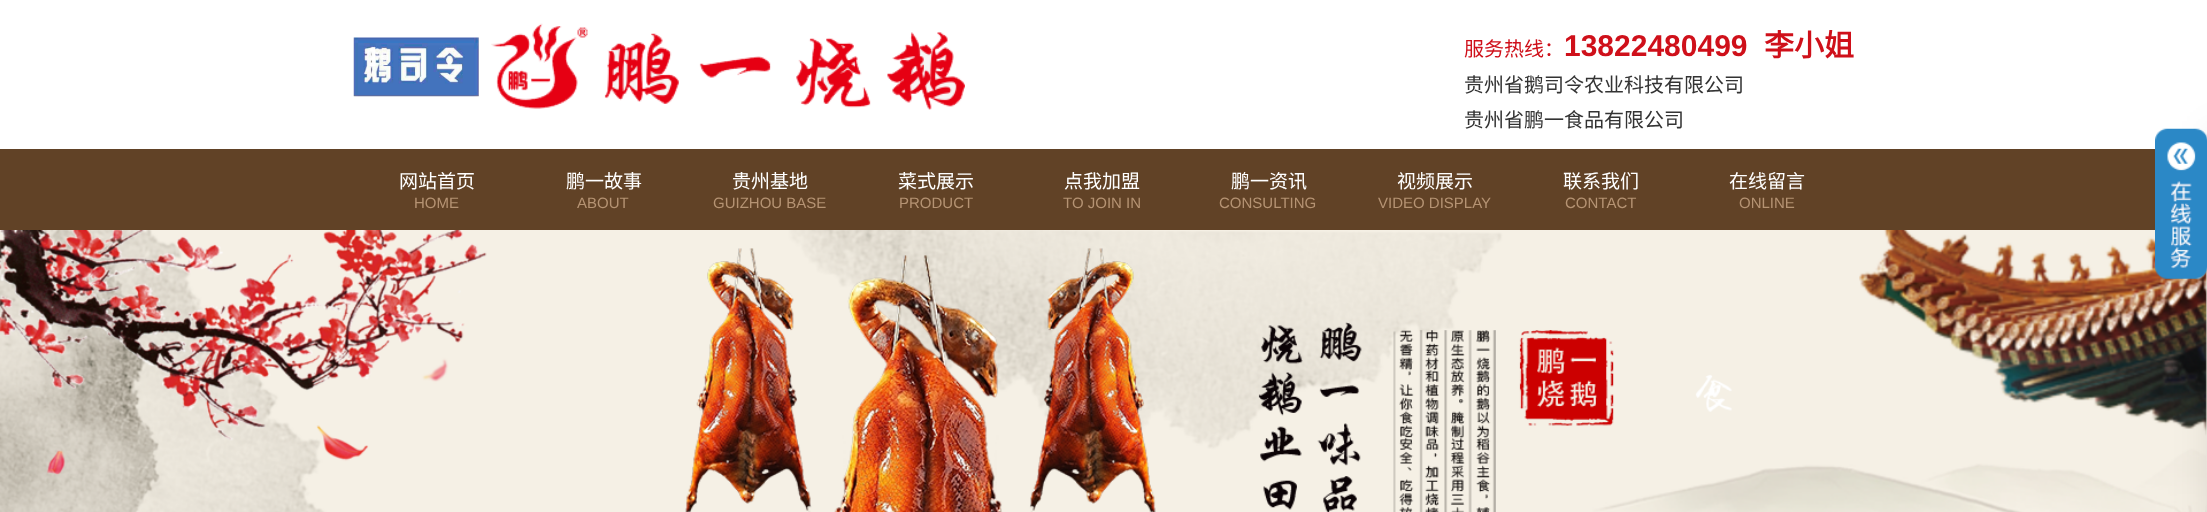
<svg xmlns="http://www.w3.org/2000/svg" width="2207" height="512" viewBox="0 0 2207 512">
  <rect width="100%" height="100%" fill="rgb(255,255,255)"/>
  <image x="353" y="37" width="126" height="60" href="pic1.png"/>
  <image x="491" y="23" width="474" height="87" href="pic2.png"/>
  <text x="1464" y="56" font-family="Noto Sans CJK SC" font-size="20" fill="rgb(207,16,26)">服务热线：</text>
  <text x="1564" y="56" font-family="Liberation Sans" font-size="30" font-weight="bold" fill="rgb(207,16,26)">13822480499</text>
  <text x="1764" y="56" font-family="Noto Sans CJK SC" font-size="30" font-weight="bold" fill="rgb(207,16,26)">李小姐</text>
  <g font-family="Noto Sans CJK SC" font-size="20" fill="rgb(51,51,51)">
    <text>
      <tspan x="1464" y="92">贵州省鹅司令农业科技有限公司</tspan>
      <tspan x="1464" y="127">贵州省鹏一食品有限公司</tspan>
    </text>
  </g>
  <rect x="0" y="149" width="2155" height="81" fill="rgb(97,66,38)"/>
  <image x="0" y="230" width="2207" height="282" href="pic4.png"/>
  <rect x="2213" y="135" width="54" height="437" fill="rgba(0,0,0,0.11)" filter="blur(20px)"/>
  <text x="399" y="188" font-family="Noto Sans CJK SC" font-size="19" fill="rgb(255,255,255)">网站首页</text>
  <text x="414" y="208" font-family="Liberation Sans" font-size="15" fill="rgb(181,147,115)">HOME</text>
  <text x="566" y="188" font-family="Noto Sans CJK SC" font-size="19" fill="rgb(255,255,255)">鹏一故事</text>
  <text x="577" y="208" font-family="Liberation Sans" font-size="15" fill="rgb(181,147,115)">ABOUT</text>
  <text x="732" y="188" font-family="Noto Sans CJK SC" font-size="19" fill="rgb(255,255,255)">贵州基地</text>
  <text x="713" y="208" font-family="Liberation Sans" font-size="15" fill="rgb(181,147,115)">GUIZHOU BASE</text>
  <text x="898" y="188" font-family="Noto Sans CJK SC" font-size="19" fill="rgb(255,255,255)">菜式展示</text>
  <text x="899" y="208" font-family="Liberation Sans" font-size="15" fill="rgb(181,147,115)">PRODUCT</text>
  <text x="1064" y="188" font-family="Noto Sans CJK SC" font-size="19" fill="rgb(255,255,255)">点我加盟</text>
  <text x="1063" y="208" font-family="Liberation Sans" font-size="15" fill="rgb(181,147,115)">TO JOIN IN</text>
  <text x="1231" y="188" font-family="Noto Sans CJK SC" font-size="19" fill="rgb(255,255,255)">鹏一资讯</text>
  <text x="1219" y="208" font-family="Liberation Sans" font-size="15" fill="rgb(181,147,115)">CONSULTING</text>
  <text x="1397" y="188" font-family="Noto Sans CJK SC" font-size="19" fill="rgb(255,255,255)">视频展示</text>
  <text x="1378" y="208" font-family="Liberation Sans" font-size="15" fill="rgb(181,147,115)">VIDEO DISPLAY</text>
  <text x="1563" y="188" font-family="Noto Sans CJK SC" font-size="19" fill="rgb(255,255,255)">联系我们</text>
  <text x="1565" y="208" font-family="Liberation Sans" font-size="15" fill="rgb(181,147,115)">CONTACT</text>
  <text x="1729" y="188" font-family="Noto Sans CJK SC" font-size="19" fill="rgb(255,255,255)">在线留言</text>
  <text x="1739" y="208" font-family="Liberation Sans" font-size="15" fill="rgb(181,147,115)">ONLINE</text>
  <image x="2155" y="128" width="52" height="151" href="pic3.png"/>
</svg>
